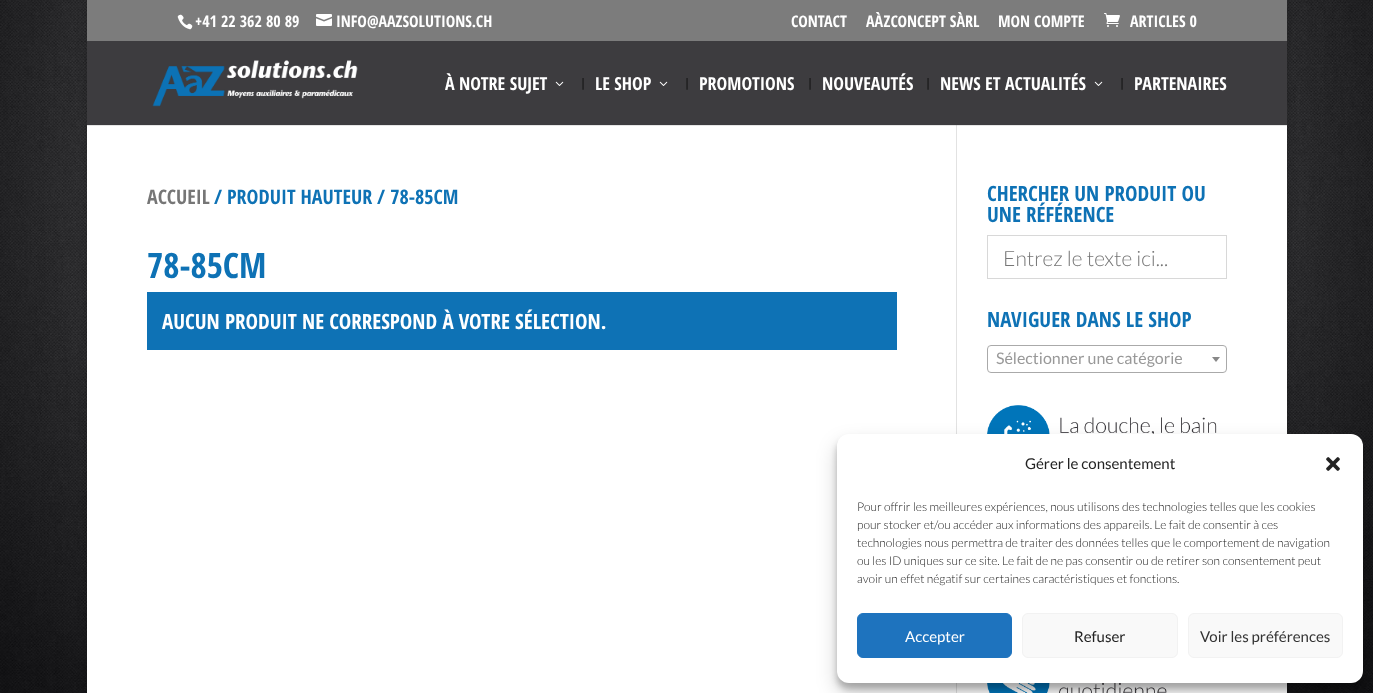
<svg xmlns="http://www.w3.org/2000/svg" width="1373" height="693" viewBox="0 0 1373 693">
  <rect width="100%" height="100%" fill="rgb(255,255,255)"/>
  <image x="0" y="0" width="1373" height="693" href="pic1.png"/>
  <rect x="87" y="0" width="1200" height="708" fill="rgba(0,0,0,0.2)" filter="blur(5px)"/>
  <rect x="87" y="0" width="1200" height="41" fill="rgb(124,124,124)"/>
  <image x="177" y="14" width="16" height="16" href="pic2.png"/>
  <text x="195" y="27" font-family="Open Sans Condensed" font-size="16" font-weight="bold" fill="rgb(255,255,255)">+41 22 362 80 89</text>
  <image x="316" y="14" width="16" height="12" href="pic3.png"/>
  <g font-family="Open Sans Condensed" font-size="16" font-weight="bold" fill="rgb(255,255,255)">
    <text x="336" y="27">INFO@AAZSOLUTIONS.CH</text>
    <text x="791" y="27">CONTACT</text>
    <text x="866" y="27">AÀZCONCEPT SÀRL</text>
    <text x="998" y="27">MON COMPTE</text>
  </g>
  <image x="1104" y="13" width="16" height="14" href="pic4.png"/>
  <text x="1130" y="27" font-family="Open Sans Condensed" font-size="16" font-weight="bold" fill="rgb(255,255,255)">ARTICLES 0</text>
  <rect x="87" y="125" width="1200" height="568" fill="rgb(255,255,255)"/>
  <rect x="956" y="125" width="1" height="568" fill="rgb(226,226,226)"/>
  <rect x="87" y="125" width="1200" height="1" fill="rgba(0,0,0,0.1)"/>
  <rect x="87" y="41" width="1200" height="84" fill="rgb(61,60,63)"/>
  <image x="152" y="60" width="206" height="47" href="pic5.png"/>
  <text x="445" y="90" font-family="Open Sans Condensed" font-size="18" font-weight="bold" fill="rgb(255,255,255)">À NOTRE SUJET</text>
  <image x="555" y="81" width="9" height="5" href="pic6.png"/>
  <text x="580" y="87" font-family="Open Sans Condensed" font-size="12" font-weight="bold" fill="rgb(24,24,25)">|</text>
  <text x="595" y="90" font-family="Open Sans Condensed" font-size="18" font-weight="bold" fill="rgb(255,255,255)">LE SHOP</text>
  <image x="659" y="81" width="9" height="5" href="pic6.png"/>
  <text x="684" y="87" font-family="Open Sans Condensed" font-size="12" font-weight="bold" fill="rgb(24,24,25)">|</text>
  <text x="699" y="90" font-family="Open Sans Condensed" font-size="18" font-weight="bold" fill="rgb(255,255,255)">PROMOTIONS</text>
  <text x="807" y="87" font-family="Open Sans Condensed" font-size="12" font-weight="bold" fill="rgb(24,24,25)">|</text>
  <text x="822" y="90" font-family="Open Sans Condensed" font-size="18" font-weight="bold" fill="rgb(255,255,255)">NOUVEAUTÉS</text>
  <text x="925" y="87" font-family="Open Sans Condensed" font-size="12" font-weight="bold" fill="rgb(24,24,25)">|</text>
  <text x="940" y="90" font-family="Open Sans Condensed" font-size="18" font-weight="bold" fill="rgb(255,255,255)">NEWS ET ACTUALITÉS</text>
  <image x="1094" y="81" width="9" height="5" href="pic6.png"/>
  <text x="1119" y="87" font-family="Open Sans Condensed" font-size="12" font-weight="bold" fill="rgb(24,24,25)">|</text>
  <text x="1134" y="90" font-family="Open Sans Condensed" font-size="18" font-weight="bold" fill="rgb(255,255,255)">PARTENAIRES</text>
  <text x="147" y="204" font-family="Open Sans Condensed" font-size="20" font-weight="bold" fill="rgb(118,118,118)">ACCUEIL</text>
  <text x="214" y="204" font-family="Open Sans Condensed" font-size="20" font-weight="bold" fill="rgb(14,114,181)">/ PRODUIT HAUTEUR / 78-85CM</text>
  <text x="147" y="278" font-family="Open Sans Condensed" font-size="35" font-weight="bold" fill="rgb(14,114,181)">78-85CM</text>
  <rect x="147" y="292" width="750" height="58" fill="rgb(14,114,181)"/>
  <text x="162" y="329" font-family="Open Sans Condensed" font-size="21" font-weight="bold" fill="rgb(255,255,255)">AUCUN PRODUIT NE CORRESPOND À VOTRE SÉLECTION.</text>
  <g font-family="Open Sans Condensed" font-size="21" font-weight="bold" fill="rgb(14,114,181)">
    <text>
      <tspan x="987" y="201">CHERCHER UN PRODUIT OU</tspan>
      <tspan x="987" y="222">UNE RÉFÉRENCE</tspan>
    </text>
  </g>
  <rect x="987.5" y="235.5" width="239" height="43" fill="none" stroke="rgb(216,216,216)"/>
  <text x="1003" y="266" font-family="Lato" font-size="21" font-weight="300" fill="rgb(118,118,118)">Entrez le texte ici...</text>
  <text x="987" y="327" font-family="Open Sans Condensed" font-size="21" font-weight="bold" fill="rgb(14,114,181)">NAVIGUER DANS LE SHOP</text>
  <rect x="987.5" y="345.5" width="239" height="27" rx="3.5" fill="none" stroke="rgb(170,170,170)"/>
  <text x="996" y="364" font-family="Lato" font-size="16" fill="rgb(153,153,153)">Sélectionner une catégorie</text>
  <path d="M1212 357H1220L1216 362Z" fill="rgb(136,136,136)"/>
  <image x="987" y="405" width="230" height="29" href="pic7.png"/>
  <image x="987" y="683" width="180" height="10" href="pic8.png"/>
  <rect x="837" y="440" width="526" height="249" rx="12" fill="rgba(0,0,0,0.23)" filter="blur(3px)"/>
  <rect x="837" y="444" width="526" height="249" rx="12" fill="rgba(0,0,0,0.19)" filter="blur(10px)"/>
  <rect x="837" y="434" width="526" height="249" rx="12" fill="rgb(255,255,255)"/>
  <text x="1025" y="469" font-family="Lato" font-size="15" fill="rgb(34,34,34)">Gérer le consentement</text>
  <image x="1326" y="457" width="14" height="14" href="pic9.png"/>
  <g font-family="Lato" font-size="12" font-weight="300" fill="rgb(34,34,34)">
    <text>
      <tspan x="857" y="511">Pour offrir les meilleures expériences, nous utilisons des technologies telles que les cookies</tspan>
      <tspan x="857" y="529">pour stocker et/ou accéder aux informations des appareils. Le fait de consentir à ces</tspan>
      <tspan x="857" y="547">technologies nous permettra de traiter des données telles que le comportement de navigation</tspan>
      <tspan x="857" y="565">ou les ID uniques sur ce site. Le fait de ne pas consentir ou de retirer son consentement peut</tspan>
      <tspan x="857" y="583">avoir un effet négatif sur certaines caractéristiques et fonctions.</tspan>
    </text>
  </g>
  <rect x="857.5" y="613.5" width="154" height="44" rx="5.5" fill="rgb(30,115,190)" stroke="rgb(30,115,190)"/>
  <text x="905" y="642" font-family="Lato" font-size="15" fill="rgb(255,255,255)">Accepter</text>
  <rect x="1022.5" y="613.5" width="155" height="44" rx="5.5" fill="rgb(249,249,249)" stroke="rgb(242,242,242)"/>
  <text x="1074" y="642" font-family="Lato" font-size="15" fill="rgb(34,34,34)">Refuser</text>
  <rect x="1188.5" y="613.5" width="154" height="44" rx="5.5" fill="rgb(249,249,249)" stroke="rgb(242,242,242)"/>
  <text x="1200" y="642" font-family="Lato" font-size="15" fill="rgb(51,51,51)">Voir les préférences</text>
</svg>
